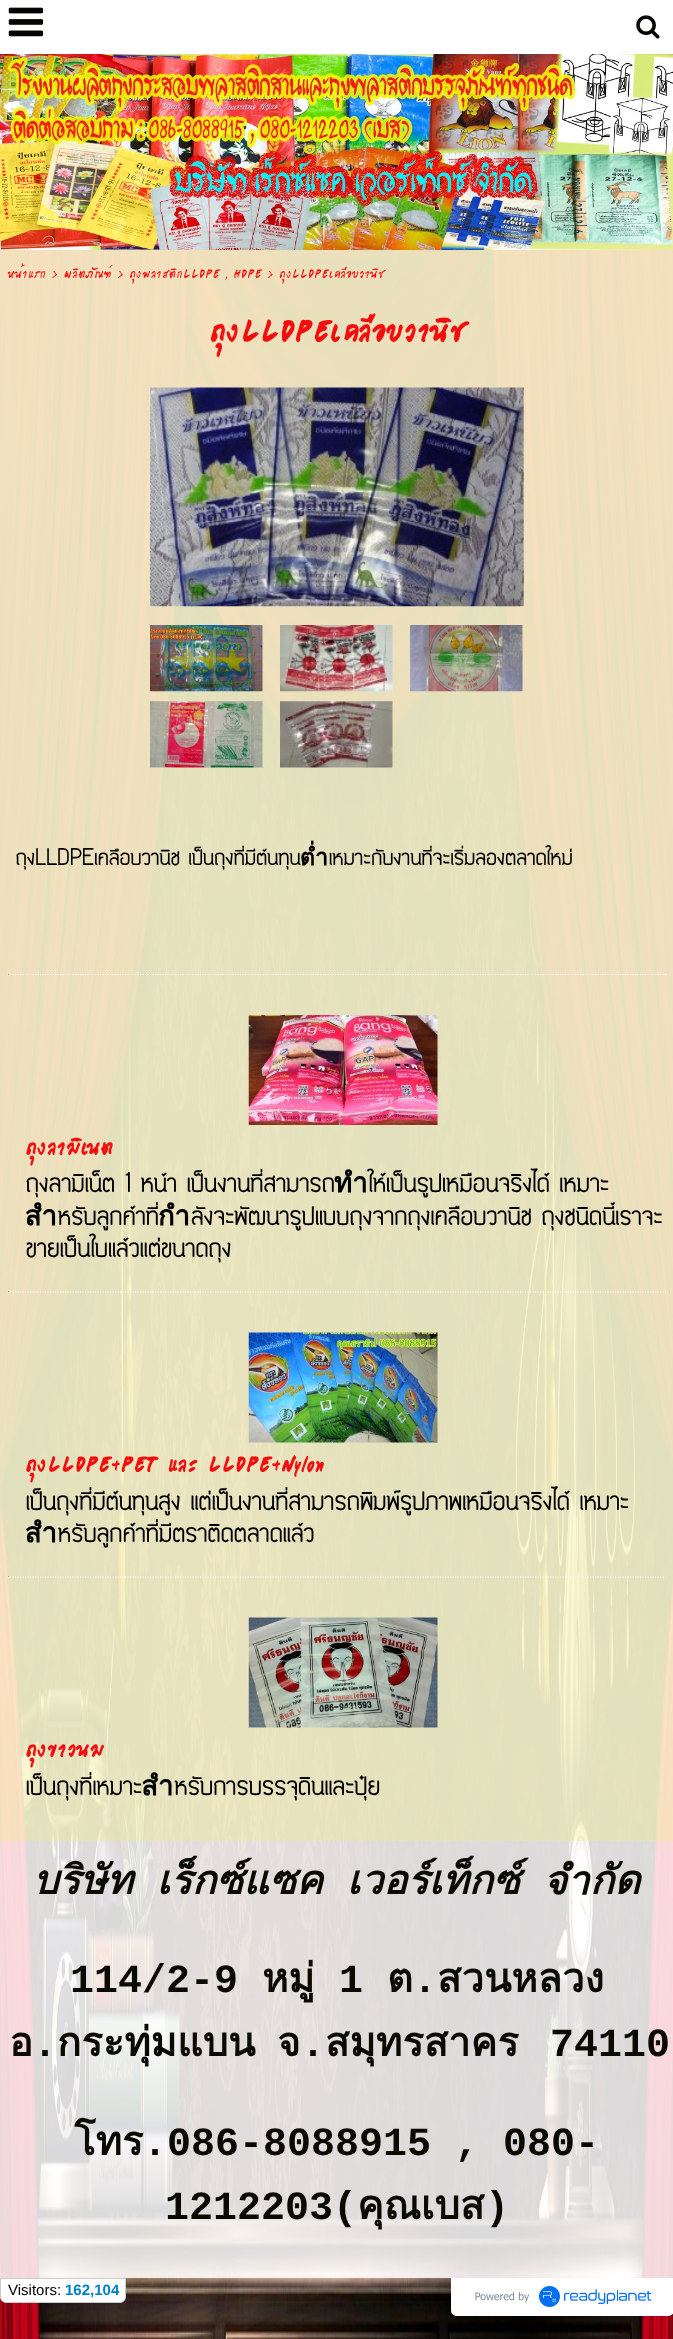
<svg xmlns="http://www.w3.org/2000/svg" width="673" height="2339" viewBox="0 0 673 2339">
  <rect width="100%" height="100%" fill="rgb(255,255,255)"/>
  <image x="0" y="250" width="673" height="2089" href="pic1.png"/>
  <image x="8" y="7" width="36" height="30" href="pic2.png"/>
  <image x="636" y="15" width="24" height="24" href="pic3.png"/>
  <image x="0" y="54" width="673" height="196" href="pic4.png"/>
  <rect x="0" y="250" width="673" height="1591" fill="rgba(250,248,208,0.9)"/>
  <text x="7" y="278" font-family="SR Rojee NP" font-size="17.5" font-weight="500" fill="rgb(245,12,12)">หน้าแรก &gt; ผลิตภัณฑ์ &gt; ถุงพลาสติกLLDPE , HDPE &gt; ถุงLLDPEเคลือบวานิช</text>
  <text x="209" y="342" font-family="SR Rojee NP" font-size="42.5" font-weight="bold" fill="rgb(245,12,12)">ถุงLLDPEเคลือบวานิช</text>
  <image x="150" y="387" width="374" height="220" href="pic5.png"/>
  <image x="150" y="625" width="113" height="67" href="pic6.png"/>
  <image x="280" y="625" width="113" height="67" href="pic7.png"/>
  <image x="410" y="625" width="113" height="67" href="pic8.png"/>
  <image x="150" y="701" width="113" height="67" href="pic9.png"/>
  <image x="280" y="701" width="113" height="67" href="pic10.png"/>
  <text x="15" y="865" font-family="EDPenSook" font-size="23.3" font-weight="bold" fill="rgb(0,0,0)">ถุงLLDPEเคลือบวานิช เป็นถุงที่มีต้นทุนต่ำเหมาะกับงานที่จะเริ่มลองตลาดใหม่</text>
  <path d="M7.5 974.5H666" fill="none" stroke="rgb(255,255,255)" stroke-width="1.2" stroke-dasharray="1.25 1.25"/>
  <rect x="8" y="974" width="1" height="1" fill="rgb(170,170,170)"/>
  <image x="248" y="1015" width="190" height="110" href="pic11.png"/>
  <text x="25" y="1155" font-family="SR Rojee NP" font-size="30" font-weight="bold" fill="rgb(245,12,12)">ถุงลามิเนต</text>
  <g font-family="EDPenSook" font-size="27.5" font-weight="bold" fill="rgb(0,0,0)">
    <text>
      <tspan x="25" y="1192">ถุงลามิเน็ต 1 หน้า เป็นงานที่สามารถทำให้เป็นรูปเหมือนจริงได้ เหมาะ</tspan>
      <tspan x="25" y="1225">สำหรับลูกค้าที่กำลังจะพัฒนารูปแบบถุงจากถุงเคลือบวานิช ถุงชนิดนี้เราจะ</tspan>
      <tspan x="25" y="1257">ขายเป็นใบแล้วแต่ขนาดถุง</tspan>
    </text>
  </g>
  <path d="M7.5 1292H666" fill="none" stroke="rgb(255,255,255)" stroke-width="1.2" stroke-dasharray="1.25 1.25"/>
  <rect x="665" y="1291" width="1" height="1" fill="rgb(255,255,255)"/>
  <rect x="8" y="1291" width="1" height="1" fill="rgb(170,170,170)"/>
  <image x="248" y="1332" width="190" height="111" href="pic12.png"/>
  <text x="25" y="1472" font-family="SR Rojee NP" font-size="30" font-weight="bold" fill="rgb(245,12,12)">ถุงLLDPE+PET และ LLDPE+Nylon</text>
  <g font-family="EDPenSook" font-size="27.5" font-weight="bold" fill="rgb(0,0,0)">
    <text>
      <tspan x="25" y="1510">เป็นถุงที่มีต้นทุนสูง แต่เป็นงานที่สามารถพิมพ์รูปภาพเหมือนจริงได้ เหมาะ</tspan>
      <tspan x="25" y="1542">สำหรับลูกค้าที่มีตราติดตลาดแล้ว</tspan>
    </text>
  </g>
  <path d="M7.5 1577H666" fill="none" stroke="rgb(255,255,255)" stroke-width="1.2" stroke-dasharray="1.25 1.25"/>
  <rect x="665" y="1576" width="1" height="1" fill="rgb(255,255,255)"/>
  <rect x="8" y="1576" width="1" height="1" fill="rgb(170,170,170)"/>
  <image x="248" y="1617" width="190" height="111" href="pic13.png"/>
  <text x="25" y="1757" font-family="SR Rojee NP" font-size="30" font-weight="bold" fill="rgb(245,12,12)">ถุงขาวนม</text>
  <text x="25" y="1795" font-family="EDPenSook" font-size="27.5" font-weight="bold" fill="rgb(0,0,0)">เป็นถุงที่เหมาะสำหรับการบรรจุดินและปุ๋ย</text>
  <rect x="0" y="1841" width="673" height="437" fill="rgba(255,255,255,0.85)"/>
  <text x="33" y="1894" word-spacing="10.5" font-family="Loma" font-size="40" font-weight="bold" font-style="italic" fill="rgb(10,10,1)">บริษัท เร็กซ์แซค เวอร์เท็กซ์ จำกัด</text>
  <text x="70" y="1992" font-family="Liberation Mono" font-size="40" font-weight="bold" fill="rgb(10,10,1)">114/2-9</text>
  <text x="262" y="1992" font-family="Loma" font-size="40" font-weight="bold" fill="rgb(10,10,1)">หมู่</text>
  <text x="339" y="1992" font-family="Liberation Mono" font-size="40" font-weight="bold" fill="rgb(10,10,1)">1</text>
  <text x="387" y="1992" font-family="Loma" font-size="40" font-weight="bold" fill="rgb(10,10,1)">ต</text>
  <text x="413" y="1992" font-family="Liberation Mono" font-size="40" font-weight="bold" fill="rgb(10,10,1)">.</text>
  <g font-family="Loma" font-size="40" font-weight="bold" fill="rgb(10,10,1)">
    <text x="437" y="1992">สวนหลวง</text>
    <text x="9" y="2056">อ</text>
  </g>
  <text x="33" y="2056" font-family="Liberation Mono" font-size="40" font-weight="bold" fill="rgb(10,10,1)">.</text>
  <text x="57" y="2056" word-spacing="8" font-family="Loma" font-size="40" font-weight="bold" fill="rgb(10,10,1)">กระทุ่มแบน จ</text>
  <text x="301" y="2056" font-family="Liberation Mono" font-size="40" font-weight="bold" fill="rgb(10,10,1)">.</text>
  <text x="325" y="2056" font-family="Loma" font-size="40" font-weight="bold" fill="rgb(10,10,1)">สมุทรสาคร</text>
  <text x="550" y="2056" font-family="Liberation Mono" font-size="40" font-weight="bold" fill="rgb(10,10,1)">74110</text>
  <text x="74" y="2155" font-family="Loma" font-size="40" font-weight="bold" fill="rgb(10,10,1)">โทร</text>
  <g font-family="Liberation Mono" font-size="40" font-weight="bold" fill="rgb(10,10,1)">
    <text x="143" y="2155">.086-8088915 , 080-</text>
    <text x="165" y="2219">1212203(</text>
  </g>
  <text x="357" y="2219" font-family="Loma" font-size="40" font-weight="bold" fill="rgb(10,10,1)">คุณเบส</text>
  <text x="485" y="2219" font-family="Liberation Mono" font-size="40" font-weight="bold" fill="rgb(10,10,1)">)</text>
  <path d="M.5 2278.5H125.5V2297C125.5 2300 123 2302.5 120 2302.5H6C3 2302.5 .5 2300 .5 2297Z" fill="rgb(255,255,255)" stroke="rgb(204,204,204)"/>
  <text x="8" y="2295" font-family="Liberation Sans" font-size="15" fill="rgb(0,0,0)">Visitors:</text>
  <text x="65" y="2295" font-family="Liberation Sans" font-size="15" font-weight="bold" fill="rgb(0,129,200)">162,104</text>
  <path d="M451 2278H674V2310C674 2313.5 671.5 2316 668 2316H457C453.5 2316 451 2313.5 451 2310Z" fill="rgb(255,255,255)"/>
  <image x="475" y="2286" width="177" height="21" href="pic14.png"/>
</svg>
